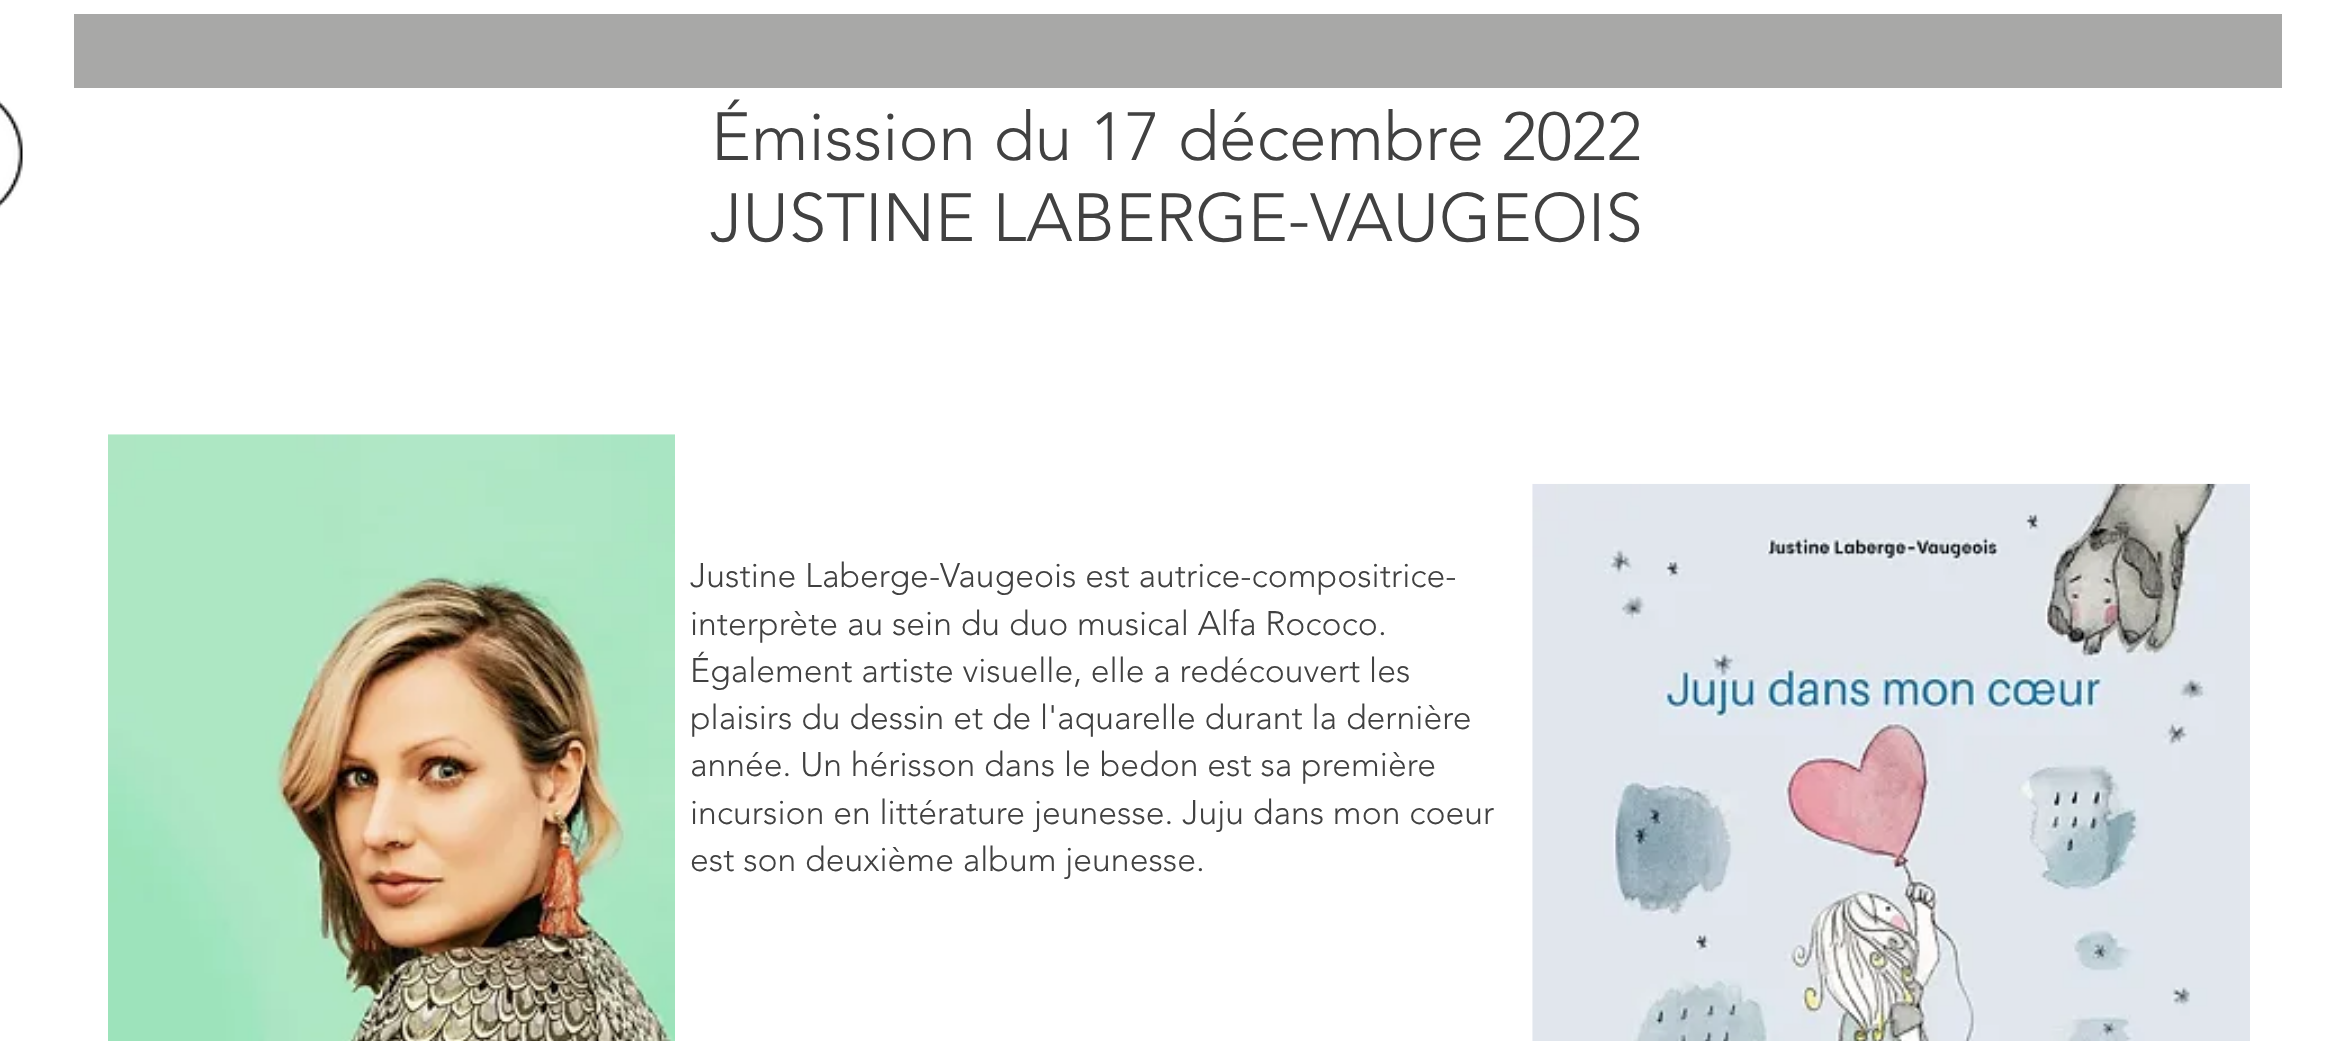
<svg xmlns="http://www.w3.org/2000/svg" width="2350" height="1041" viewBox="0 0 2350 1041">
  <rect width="100%" height="100%" fill="rgb(255,255,255)"/>
  <rect x="74" y="14" width="2208" height="74" fill="rgb(168,168,167)"/>
  <image x="0" y="100" width="23" height="108" href="pic1.png"/>
  <g font-family="'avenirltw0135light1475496'" font-size="67.5" font-weight="300" fill="rgb(65,65,65)">
    <text x="711" y="160">Émission du 17 décembre 2022</text>
    <text x="710" y="241">JUSTINE LABERGE-VAUGEOIS</text>
  </g>
  <image x="108" y="434" width="567" height="607" href="pic2.png"/>
  <g font-family="'avenirltw0135light1475496'" font-size="33.75" font-weight="300" fill="rgb(65,65,65)">
    <text>
      <tspan x="690" y="587">Justine Laberge-Vaugeois est autrice-compositrice-</tspan>
      <tspan x="690" y="635">interprète au sein du duo musical Alfa Rococo.</tspan>
      <tspan x="690" y="682">Également artiste visuelle, elle a redécouvert les</tspan>
      <tspan x="690" y="729">plaisirs du dessin et de l'aquarelle durant la dernière</tspan>
      <tspan x="690" y="776">année. Un hérisson dans le bedon est sa première</tspan>
      <tspan x="690" y="824">incursion en littérature jeunesse. Juju dans mon coeur</tspan>
      <tspan x="690" y="871">est son deuxième album jeunesse.</tspan>
    </text>
  </g>
  <image x="1532" y="483" width="718" height="558" href="pic3.png"/>
</svg>
